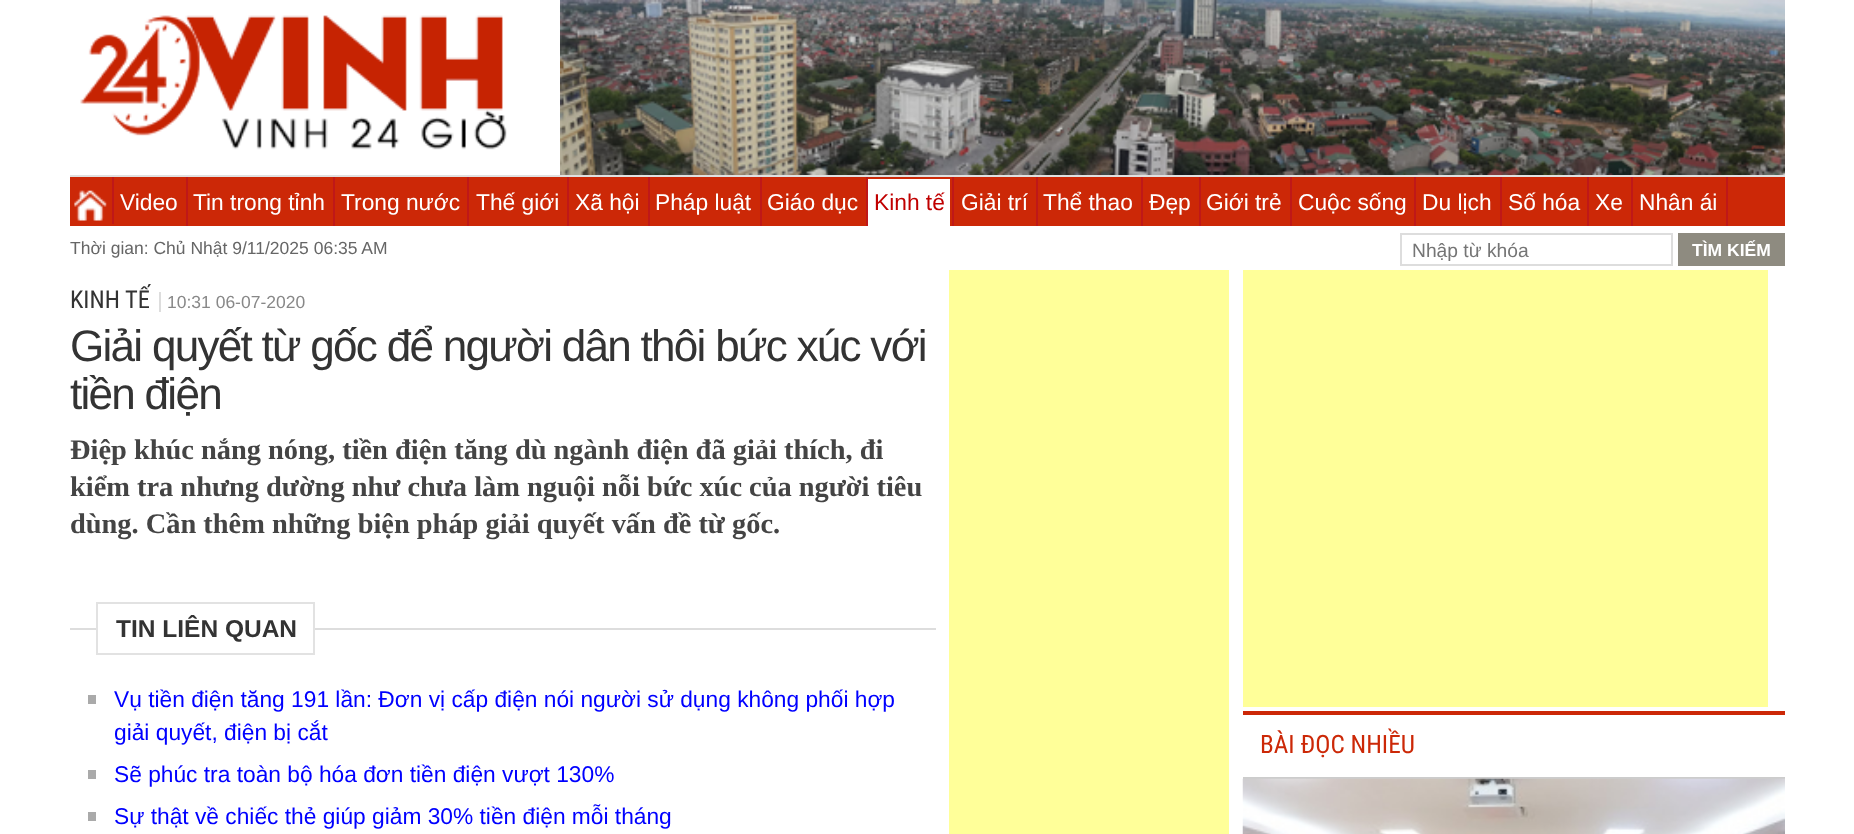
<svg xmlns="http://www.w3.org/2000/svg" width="1854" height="834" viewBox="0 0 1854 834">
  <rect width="100%" height="100%" fill="rgb(255,255,255)"/>
  <image x="80" y="15" width="427" height="135" href="pic1.png"/>
  <image x="560" y="0" width="1225" height="175" href="pic2.png"/>
  <rect x="70" y="177" width="1715" height="49" fill="rgb(204,40,7)"/>
  <rect x="70" y="175" width="1715" height="2" fill="rgb(224,224,224)"/>
  <rect x="112" y="177" width="2" height="47" fill="rgb(191,24,24)"/>
  <image x="74" y="190" width="33" height="31" href="pic3.png"/>
  <rect x="186" y="177" width="2" height="49" fill="rgb(191,24,24)"/>
  <text x="120" y="210" font-family="Liberation Sans" font-size="22.75" fill="rgb(255,255,255)">Video</text>
  <rect x="333" y="177" width="2" height="49" fill="rgb(191,24,24)"/>
  <text x="193" y="210" font-family="Liberation Sans" font-size="22.75" fill="rgb(255,255,255)">Tin trong tỉnh</text>
  <rect x="467" y="177" width="2" height="49" fill="rgb(191,24,24)"/>
  <text x="341" y="210" font-family="Liberation Sans" font-size="22.75" fill="rgb(255,255,255)">Trong nước</text>
  <rect x="567" y="177" width="2" height="49" fill="rgb(191,24,24)"/>
  <text x="476" y="210" font-family="Liberation Sans" font-size="22.75" fill="rgb(255,255,255)">Thế giới</text>
  <rect x="648" y="177" width="2" height="49" fill="rgb(191,24,24)"/>
  <text x="575" y="210" font-family="Liberation Sans" font-size="22.75" fill="rgb(255,255,255)">Xã hội</text>
  <rect x="760" y="177" width="2" height="49" fill="rgb(191,24,24)"/>
  <text x="655" y="210" font-family="Liberation Sans" font-size="22.75" fill="rgb(255,255,255)">Pháp luật</text>
  <rect x="866" y="177" width="2" height="49" fill="rgb(191,24,24)"/>
  <text x="767" y="210" font-family="Liberation Sans" font-size="22.75" fill="rgb(255,255,255)">Giáo dục</text>
  <rect x="952" y="177" width="2" height="49" fill="rgb(191,24,24)"/>
  <rect x="868" y="179" width="82" height="47" fill="rgb(255,255,255)"/>
  <text x="874" y="210" font-family="Liberation Sans" font-size="22.75" fill="rgb(192,0,0)">Kinh tế</text>
  <rect x="1036" y="177" width="2" height="49" fill="rgb(191,24,24)"/>
  <text x="961" y="210" font-family="Liberation Sans" font-size="22.75" fill="rgb(255,255,255)">Giải trí</text>
  <rect x="1141" y="177" width="2" height="49" fill="rgb(191,24,24)"/>
  <text x="1043" y="210" font-family="Liberation Sans" font-size="22.75" fill="rgb(255,255,255)">Thể thao</text>
  <rect x="1199" y="177" width="2" height="49" fill="rgb(191,24,24)"/>
  <text x="1149" y="210" font-family="Liberation Sans" font-size="22.75" fill="rgb(255,255,255)">Đẹp</text>
  <rect x="1290" y="177" width="2" height="49" fill="rgb(191,24,24)"/>
  <text x="1206" y="210" font-family="Liberation Sans" font-size="22.75" fill="rgb(255,255,255)">Giới trẻ</text>
  <rect x="1414" y="177" width="2" height="49" fill="rgb(191,24,24)"/>
  <text x="1298" y="210" font-family="Liberation Sans" font-size="22.75" fill="rgb(255,255,255)">Cuộc sống</text>
  <rect x="1500" y="177" width="2" height="49" fill="rgb(191,24,24)"/>
  <text x="1422" y="210" font-family="Liberation Sans" font-size="22.75" fill="rgb(255,255,255)">Du lịch</text>
  <rect x="1587" y="177" width="2" height="49" fill="rgb(191,24,24)"/>
  <text x="1508" y="210" font-family="Liberation Sans" font-size="22.75" fill="rgb(255,255,255)">Số hóa</text>
  <rect x="1631" y="177" width="2" height="49" fill="rgb(191,24,24)"/>
  <text x="1595" y="210" font-family="Liberation Sans" font-size="22.75" fill="rgb(255,255,255)">Xe</text>
  <rect x="1726" y="177" width="2" height="49" fill="rgb(191,24,24)"/>
  <text x="1639" y="210" font-family="Liberation Sans" font-size="22.75" fill="rgb(255,255,255)">Nhân ái</text>
  <text x="70" y="254" font-family="Liberation Sans" font-size="17.5" fill="rgb(102,102,102)">Thời gian: Chủ Nhật 9/11/2025 06:35 AM</text>
  <rect x="1401" y="234" width="271" height="31" fill="none" stroke="rgb(221,221,221)" stroke-width="2"/>
  <text x="1412" y="257" font-family="Liberation Sans" font-size="19.25" fill="rgb(117,117,117)">Nhập từ khóa</text>
  <rect x="1678" y="233" width="107" height="33" fill="rgb(142,139,128)"/>
  <text x="1692" y="256" font-family="Liberation Sans" font-size="17.5" font-weight="bold" fill="rgb(255,255,255)">TÌM KIẾM</text>
  <text x="70" y="308" font-family="Roboto Condensed" font-size="24.5" fill="rgb(51,51,51)">KINH TẾ</text>
  <text x="167" y="308" font-family="Liberation Sans" font-size="17.5" fill="rgb(136,136,136)">10:31 06-07-2020</text>
  <rect x="159" y="292" width="2" height="20" fill="rgb(221,221,221)"/>
  <g font-family="Liberation Sans" font-size="44.1" letter-spacing="-1.75" fill="rgb(51,51,51)">
    <text>
      <tspan x="70" y="361">Giải quyết từ gốc để người dân thôi bức xúc với</tspan>
      <tspan x="70" y="409">tiền điện</tspan>
    </text>
  </g>
  <g font-family="Liberation Serif" font-size="28.4" font-weight="bold" fill="rgb(68,68,68)">
    <text>
      <tspan x="70" y="459">Điệp khúc nắng nóng, tiền điện tăng dù ngành điện đã giải thích, đi</tspan>
      <tspan x="70" y="496">kiểm tra nhưng dường như chưa làm nguội nỗi bức xúc của người tiêu</tspan>
      <tspan x="70" y="533">dùng. Cần thêm những biện pháp giải quyết vấn đề từ gốc.</tspan>
    </text>
  </g>
  <rect x="70" y="628" width="866" height="2" fill="rgb(221,221,221)"/>
  <rect x="98" y="628" width="215" height="2" fill="rgb(255,255,255)"/>
  <rect x="97" y="603" width="217" height="51" fill="none" stroke="rgb(226,226,226)" stroke-width="2"/>
  <text x="116" y="637" font-family="Liberation Sans" font-size="24.5" font-weight="bold" fill="rgb(51,51,51)">TIN LIÊN QUAN</text>
  <rect x="88" y="695" width="8" height="9" fill="rgb(170,170,170)"/>
  <g font-family="Liberation Sans" font-size="22.75" fill="rgb(0,0,255)">
    <text>
      <tspan x="114" y="707">Vụ tiền điện tăng 191 lần: Đơn vị cấp điện nói người sử dụng không phối hợp</tspan>
      <tspan x="114" y="740">giải quyết, điện bị cắt</tspan>
    </text>
  </g>
  <rect x="88" y="770" width="8" height="9" fill="rgb(170,170,170)"/>
  <text x="114" y="782" font-family="Liberation Sans" font-size="22.75" fill="rgb(0,0,255)">Sẽ phúc tra toàn bộ hóa đơn tiền điện vượt 130%</text>
  <rect x="88" y="812" width="8" height="9" fill="rgb(170,170,170)"/>
  <text x="114" y="824" font-family="Liberation Sans" font-size="22.75" fill="rgb(0,0,255)">Sự thật về chiếc thẻ giúp giảm 30% tiền điện mỗi tháng</text>
  <rect x="949" y="270" width="280" height="564" fill="rgb(255,255,153)"/>
  <rect x="1243" y="270" width="525" height="437" fill="rgb(255,255,153)"/>
  <rect x="1243" y="711" width="542" height="4" fill="rgb(204,40,7)"/>
  <rect x="1243" y="777" width="542" height="2" fill="rgb(204,204,204)"/>
  <text x="1260" y="753" font-family="Roboto Condensed" font-size="25.25" fill="rgb(204,40,7)">BÀI ĐỌC NHIỀU</text>
  <image x="1242" y="778" width="543" height="56" href="pic4.png"/>
</svg>
